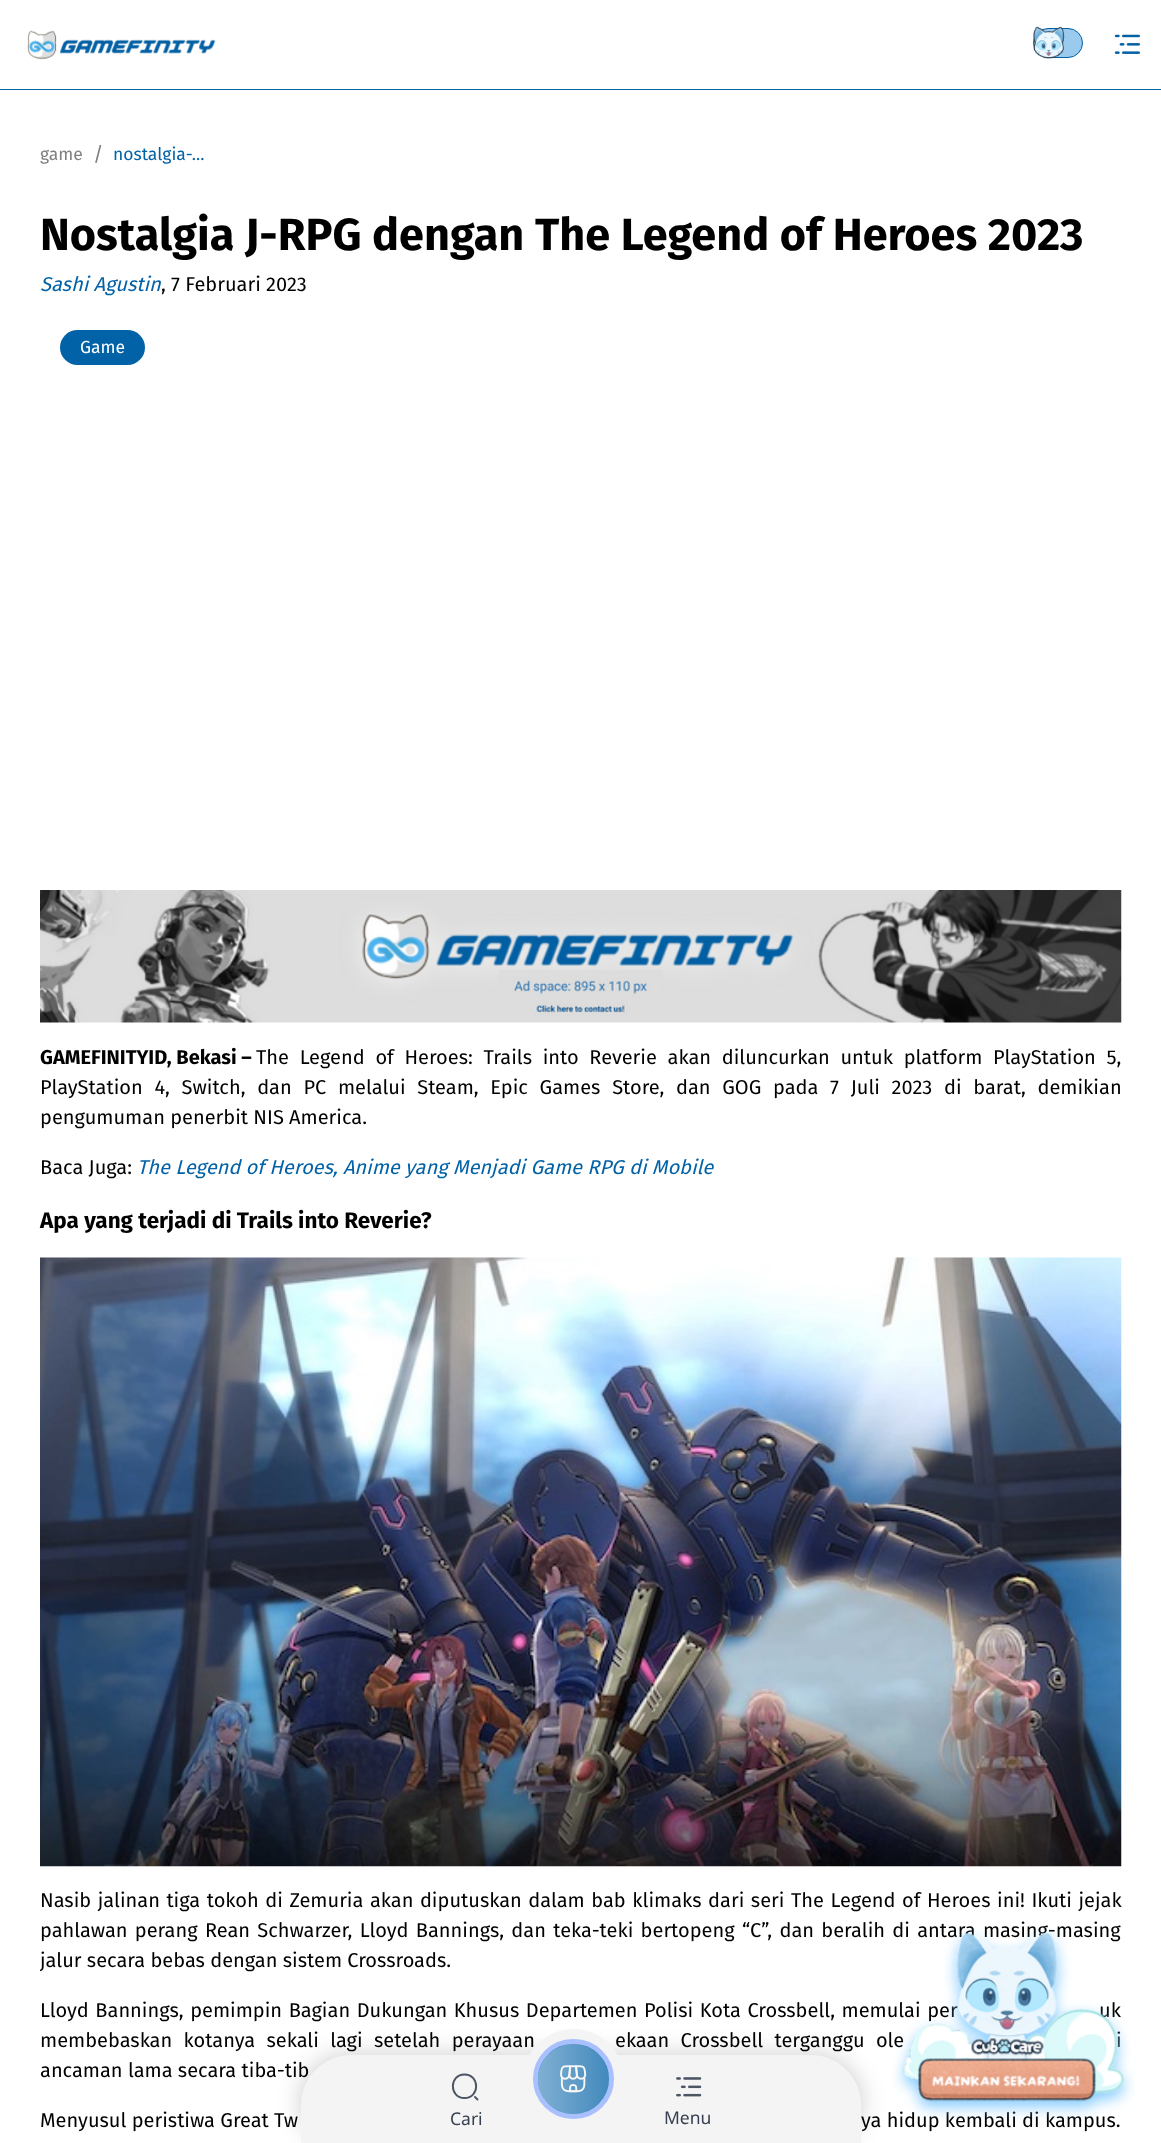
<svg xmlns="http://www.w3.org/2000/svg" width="1161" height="2143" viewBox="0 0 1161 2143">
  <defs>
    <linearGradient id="g1" gradientUnits="userSpaceOnUse" x1="538" y1="2114" x2="680" y2="2114"><stop offset="0" stop-color="rgb(255,255,255)" stop-opacity="0.5"/><stop offset="1" stop-color="rgb(255,255,255)" stop-opacity="0"/></linearGradient>
  </defs>
  <rect width="100%" height="100%" fill="rgb(255,255,255)"/>
  <rect x="0" y="89" width="1161" height="1" fill="rgb(2,96,164)"/>
  <image x="27" y="30" width="189" height="30" href="pic1.png"/>
  <rect x="1033.5" y="28.5" width="49" height="29" rx="14.5" fill="rgb(154,203,239)" stroke="rgb(2,96,164)"/>
  <image x="1033" y="26" width="32" height="33" href="pic2.png"/>
  <image x="1114" y="34" width="26" height="20" href="pic3.png"/>
  <text x="40" y="160" font-family="Fira Sans" font-size="17.5" fill="rgb(128,128,128)">game</text>
  <text x="93" y="161" font-family="Fira Sans" font-size="20" fill="rgb(128,128,128)">/</text>
  <text x="113" y="160" font-family="Fira Sans" font-size="17.5" fill="rgb(2,98,167)">nostalgia-...</text>
  <text x="40" y="250" font-family="Fira Sans" font-size="45" font-weight="bold" fill="rgb(0,0,0)">Nostalgia J-RPG dengan The Legend of Heroes 2023</text>
  <text x="40" y="291" font-family="Fira Sans" font-size="20" font-style="italic" fill="rgb(2,98,167)">Sashi Agustin</text>
  <text x="161" y="291" font-family="Fira Sans" font-size="20" fill="rgb(0,0,0)">, 7 Februari 2023</text>
  <rect x="60" y="330" width="85" height="35" rx="17.5" fill="rgb(2,98,167)"/>
  <text x="80" y="353" font-family="Fira Sans" font-size="17.5" fill="rgb(255,255,255)">Game</text>
  <image x="40" y="890" width="1082" height="133" href="pic4.png"/>
  <text x="40" y="1064" font-family="Fira Sans" font-size="20" font-weight="bold" fill="rgb(0,0,0)">GAMEFINITYID, Bekasi –</text>
  <g font-family="Fira Sans" font-size="20" fill="rgb(0,0,0)">
    <text x="256" y="1064" word-spacing="5.4">The Legend of Heroes: Trails into Reverie akan diluncurkan untuk platform PlayStation 5,</text>
    <text>
      <tspan x="40" y="1094" word-spacing="6.4">PlayStation 4, Switch, dan PC melalui Steam, Epic Games Store, dan GOG pada 7 Juli 2023 di barat, demikian</tspan>
      <tspan x="40" y="1124">pengumuman penerbit NIS America.</tspan>
    </text>
    <text x="40" y="1174">Baca Juga:</text>
  </g>
  <text x="137" y="1174" font-family="Fira Sans" font-size="20" font-style="italic" fill="rgb(2,98,167)">The Legend of Heroes, Anime yang Menjadi Game RPG di Mobile</text>
  <text x="40" y="1228" font-family="Fira Sans" font-size="22.5" font-weight="bold" fill="rgb(0,0,0)">Apa yang terjadi di Trails into Reverie?</text>
  <image x="40" y="1257" width="1082" height="610" href="pic5.png"/>
  <g font-family="Fira Sans" font-size="20" fill="rgb(0,0,0)">
    <text>
      <tspan x="40" y="1907" word-spacing="1.25">Nasib jalinan tiga tokoh di Zemuria akan diputuskan dalam bab klimaks dari seri The Legend of Heroes ini! Ikuti jejak</tspan>
      <tspan x="40" y="1937" word-spacing="2">pahlawan perang Rean Schwarzer, Lloyd Bannings, dan teka-teki bertopeng “C”, dan beralih di antara masing-masing</tspan>
      <tspan x="40" y="1967">jalur secara bebas dengan sistem Crossroads.</tspan>
    </text>
    <text x="40" y="2017" word-spacing="1.25">Lloyd Bannings, pemimpin Bagian Dukungan Khusus Departemen Polisi Kota Crossbell, memulai per</text>
    <text x="1099" y="2017" word-spacing="1.25">uk</text>
    <text x="40" y="2047" word-spacing="6">membebaskan kotanya sekali lagi setelah perayaan</text>
    <text x="615" y="2047" word-spacing="6">ekaan Crossbell terganggu ole</text>
    <text x="1116" y="2047" word-spacing="6">i</text>
    <text x="40" y="2077">ancaman lama secara tiba-tib</text>
    <text x="40" y="2127">Menyusul peristiwa Great Tw</text>
    <text x="861" y="2127">ya hidup kembali di kampus.</text>
  </g>
  <image x="893" y="1928" width="242" height="192" href="pic8.png"/>
  <rect x="301" y="2055" width="560" height="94" rx="50" fill="rgba(0,0,0,0.2)" filter="blur(12.5px)"/>
  <path d="M351 2055H811C838.5 2055 861 2077.5 861 2105V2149H301V2105C301 2077.5 323.5 2055 351 2055Z" fill="rgb(244,244,244)"/>
  <path d="M464.5 2098C480 2098 480 2074.5 464.5 2074.5C449 2074.5 449 2098 464.5 2098ZM477.5 2099.5L475 2097" fill="none" stroke="rgb(75,85,99)" stroke-width="1.9" stroke-linecap="round" stroke-linejoin="round"/>
  <text x="450" y="2125" font-family="Noto Sans" font-size="17.5" fill="rgb(55,65,81)">Cari</text>
  <rect x="523" y="2029" width="101" height="107" rx="50.5" fill="rgb(244,244,244)"/>
  <rect x="535.5" y="2041.5" width="76" height="75" rx="37.5" fill="rgb(2,98,167)" stroke="rgb(169,192,255)" stroke-width="5"/>
  <image x="560" y="2065" width="27" height="28" href="pic6.png"/>
  <rect x="538" y="2044" width="71" height="70" rx="35" fill="url(#g1)"/>
  <image x="676" y="2077" width="26" height="20" href="pic7.png"/>
  <text x="664" y="2124" font-family="Noto Sans" font-size="17.5" fill="rgb(55,65,81)">Menu</text>
</svg>
